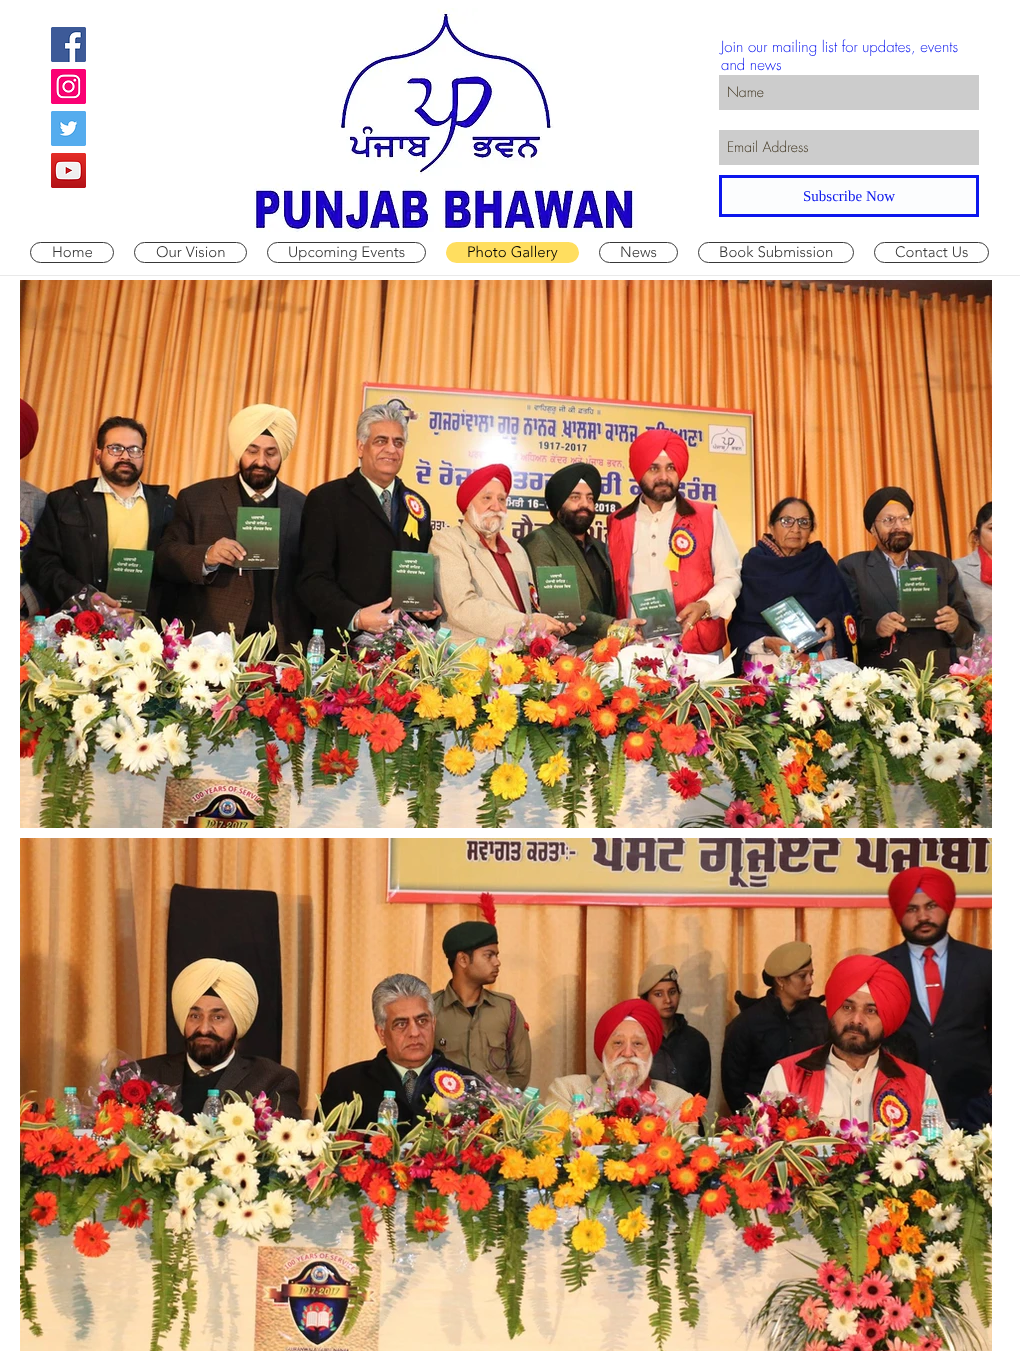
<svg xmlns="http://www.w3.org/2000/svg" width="1020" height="1351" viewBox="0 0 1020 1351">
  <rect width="100%" height="100%" fill="rgb(255,255,255)"/>
  <image x="51" y="27" width="35" height="35" href="pic1.png"/>
  <image x="51" y="69" width="35" height="35" href="pic2.png"/>
  <image x="51" y="111" width="35" height="35" href="pic3.png"/>
  <image x="51" y="153" width="35" height="35" href="pic4.png"/>
  <image x="254" y="8" width="384" height="224" href="pic5.png"/>
  <g font-family="futura" font-size="15" font-weight="300" fill="rgb(12,23,237)">
    <text>
      <tspan x="721" y="52">Join our mailing list for updates, events</tspan>
      <tspan x="721" y="70">and news</tspan>
    </text>
  </g>
  <rect x="719" y="75" width="260" height="35" fill="rgb(204,204,204)"/>
  <text x="727" y="97" font-family="futura" font-size="14" font-weight="300" fill="rgb(63,52,31)">Name</text>
  <rect x="719" y="130" width="260" height="35" fill="rgb(204,204,204)"/>
  <text x="727" y="152" font-family="futura" font-size="14" font-weight="300" fill="rgb(63,52,31)">Email Address</text>
  <rect x="720.5" y="176.5" width="257" height="39" fill="rgb(252,253,254)" stroke="rgb(12,23,237)" stroke-width="3"/>
  <text x="803" y="201" font-family="Liberation Serif" font-size="15" fill="rgb(12,23,237)">Subscribe Now</text>
  <rect x="30.5" y="242.5" width="83" height="20" rx="10" fill="none" stroke="rgb(56,56,56)"/>
  <text x="52" y="257" font-family="'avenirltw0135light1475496'" font-size="15" font-weight="300" fill="rgb(56,56,56)">Home</text>
  <rect x="134.5" y="242.5" width="112" height="20" rx="10" fill="none" stroke="rgb(56,56,56)"/>
  <text x="156" y="257" font-family="'avenirltw0135light1475496'" font-size="15" font-weight="300" fill="rgb(56,56,56)">Our Vision</text>
  <rect x="267.5" y="242.5" width="158" height="20" rx="10" fill="none" stroke="rgb(56,56,56)"/>
  <text x="288" y="257" font-family="'avenirltw0135light1475496'" font-size="15" font-weight="300" fill="rgb(56,56,56)">Upcoming Events</text>
  <rect x="446" y="242" width="133" height="21" rx="10.5" fill="rgb(255,222,95)"/>
  <text x="467" y="257" font-family="'avenirltw0135light1475496'" font-size="15" font-weight="300" fill="rgb(0,0,0)">Photo Gallery</text>
  <rect x="599.5" y="242.5" width="78" height="20" rx="10" fill="none" stroke="rgb(56,56,56)"/>
  <text x="620" y="257" font-family="'avenirltw0135light1475496'" font-size="15" font-weight="300" fill="rgb(56,56,56)">News</text>
  <rect x="698.5" y="242.5" width="155" height="20" rx="10" fill="none" stroke="rgb(56,56,56)"/>
  <text x="719" y="257" font-family="'avenirltw0135light1475496'" font-size="15" font-weight="300" fill="rgb(56,56,56)">Book Submission</text>
  <rect x="874.5" y="242.5" width="114" height="20" rx="10" fill="none" stroke="rgb(56,56,56)"/>
  <text x="895" y="257" font-family="'avenirltw0135light1475496'" font-size="15" font-weight="300" fill="rgb(56,56,56)">Contact Us</text>
  <rect x="0" y="275" width="1020" height="1" fill="rgb(233,233,233)"/>
  <image x="20" y="280" width="972" height="548" href="pic6.png"/>
  <image x="20" y="838" width="972" height="513" href="pic7.png"/>
</svg>
